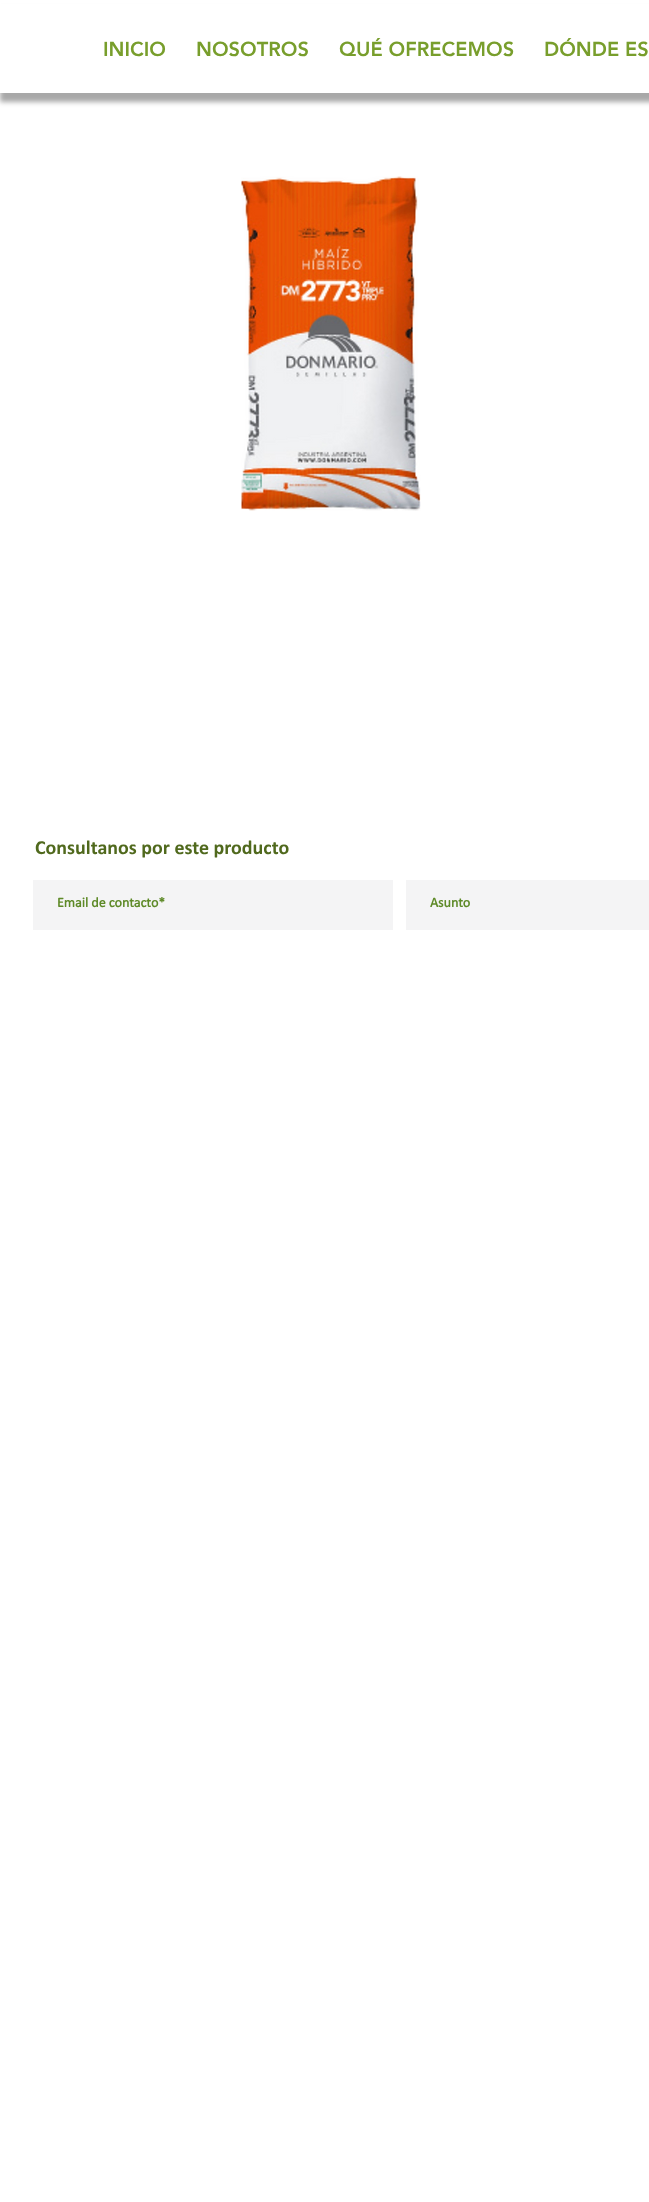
<svg xmlns="http://www.w3.org/2000/svg" width="649" height="2202" viewBox="0 0 649 2202">
  <rect width="100%" height="100%" fill="rgb(255,255,255)"/>
  <rect x="0" y="9" width="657" height="93" fill="rgba(0,0,0,0.34)" filter="blur(2.5px)"/>
  <rect x="0" y="4" width="649" height="89" fill="rgb(255,255,255)"/>
  <g font-family="'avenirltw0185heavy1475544'" font-size="20" font-weight="900" fill="rgb(120,158,44)">
    <text x="103" y="56">INICIO</text>
    <text x="196" y="56">NOSOTROS</text>
    <text x="339" y="56">QUÉ OFRECEMOS</text>
    <text x="544" y="56">DÓNDE ES</text>
  </g>
  <image x="241" y="176" width="180" height="335" href="pic1.png"/>
  <text x="35" y="854" font-family="Calibri" font-size="20" font-weight="bold" fill="rgb(80,105,29)">Consultanos por este producto</text>
  <rect x="33" y="880" width="360" height="50" fill="rgb(244,244,245)"/>
  <text x="57" y="907" font-family="'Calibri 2'" font-size="14" font-weight="bold" fill="rgb(94,138,40)">Email de contacto*</text>
  <rect x="406" y="880" width="243" height="50" fill="rgb(244,244,245)"/>
  <text x="430" y="907" font-family="'Calibri 2'" font-size="14" font-weight="bold" fill="rgb(94,138,40)">Asunto</text>
</svg>
